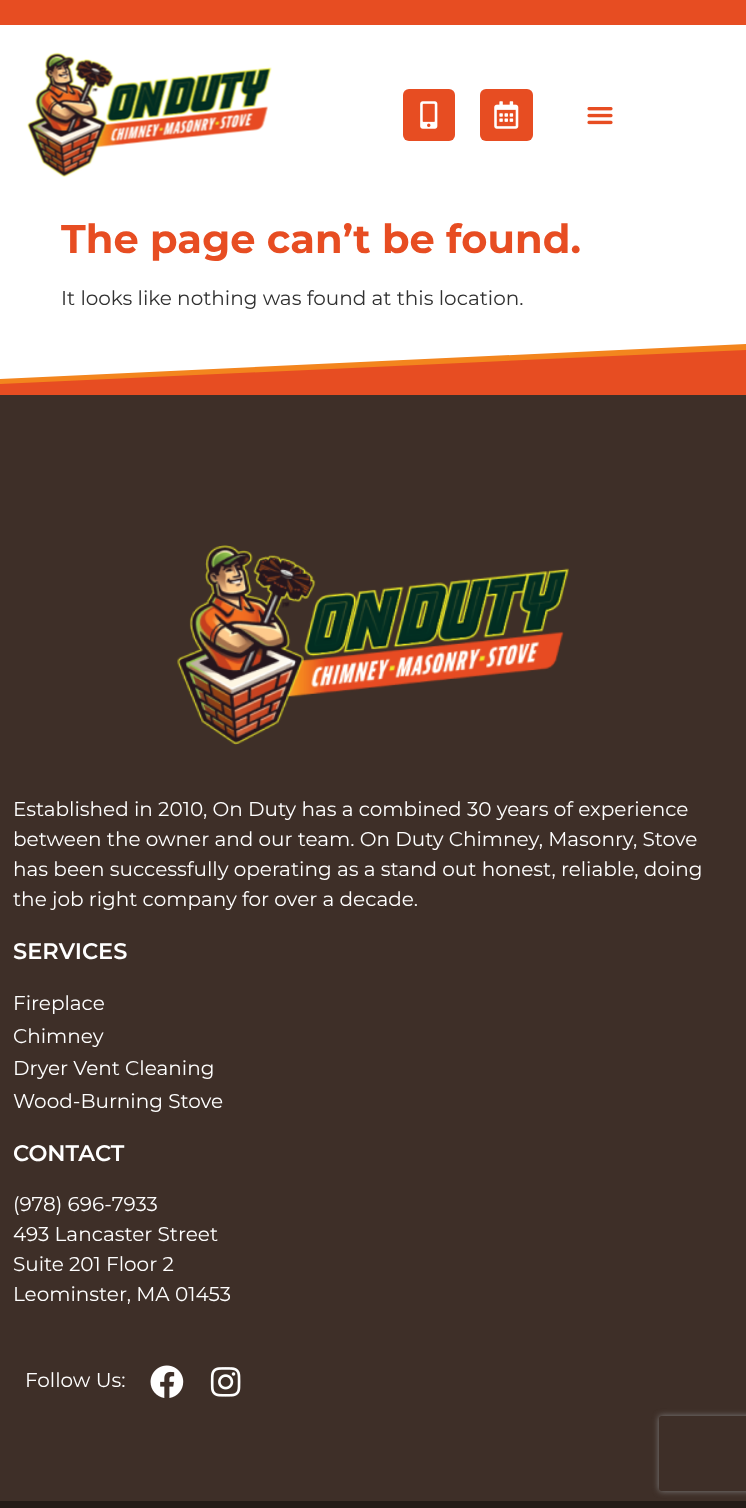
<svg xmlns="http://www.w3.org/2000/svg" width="746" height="1508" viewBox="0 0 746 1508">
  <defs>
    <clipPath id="clip1"><path d="M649 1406H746V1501H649ZM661.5 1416H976.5C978 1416 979 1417 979 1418.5V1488.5C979 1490 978 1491 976.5 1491H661.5C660 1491 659 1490 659 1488.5V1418.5C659 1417 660 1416 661.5 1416Z" clip-rule="evenodd"/></clipPath>
  </defs>
  <rect width="100%" height="100%" fill="rgb(255,255,255)"/>
  <rect x="0" y="0" width="746" height="25" fill="rgb(231,77,34)"/>
  <image x="27" y="52" width="245" height="125" href="pic1.png"/>
  <rect x="403" y="89" width="52" height="52" rx="6" fill="rgb(231,77,34)"/>
  <image x="420" y="101" width="18" height="28" href="pic2.png"/>
  <rect x="480" y="89" width="53" height="52" rx="6" fill="rgb(231,77,34)"/>
  <image x="494" y="101" width="25" height="28" href="pic3.png"/>
  <image x="587" y="107" width="26" height="18" href="pic4.png"/>
  <text x="61" y="253" font-family="Montserrat" font-size="40" font-weight="bold" fill="rgb(231,77,34)">The page can’t be found.</text>
  <text x="61" y="305" font-family="Montserrat" font-size="20" fill="rgb(49,49,49)">It looks like nothing was found at this location.</text>
  <path d="M0 379L746 344V389H0Z" fill="rgb(243,133,30)"/>
  <path d="M0 384L746 350V395H0Z" fill="rgb(231,77,34)"/>
  <rect x="0" y="395" width="746" height="1106" fill="rgb(62,47,40)"/>
  <image x="177" y="545" width="392" height="200" href="pic5.png"/>
  <g font-family="Montserrat" font-size="20" fill="rgb(255,255,255)">
    <text>
      <tspan x="13" y="816">Established in 2010, On Duty has a combined 30 years of experience</tspan>
      <tspan x="13" y="846">between the owner and our team. On Duty Chimney, Masonry, Stove</tspan>
      <tspan x="13" y="876">has been successfully operating as a stand out honest, reliable, doing</tspan>
      <tspan x="13" y="906">the job right company for over a decade.</tspan>
    </text>
  </g>
  <text x="13" y="959" font-family="Montserrat" font-size="22.5" font-weight="600" fill="rgb(255,255,255)">SERVICES</text>
  <g font-family="Montserrat" font-size="20" fill="rgb(255,255,255)">
    <text>
      <tspan x="13" y="1010">Fireplace</tspan>
      <tspan x="13" y="1043">Chimney</tspan>
      <tspan x="13" y="1075">Dryer Vent Cleaning</tspan>
      <tspan x="13" y="1108">Wood-Burning Stove</tspan>
    </text>
  </g>
  <text x="13" y="1161" font-family="Montserrat" font-size="22.5" font-weight="600" fill="rgb(255,255,255)">CONTACT</text>
  <g font-family="Montserrat" font-size="20" fill="rgb(255,255,255)">
    <text>
      <tspan x="13" y="1211">(978) 696-7933</tspan>
      <tspan x="13" y="1241">493 Lancaster Street</tspan>
      <tspan x="13" y="1271">Suite 201 Floor 2</tspan>
      <tspan x="13" y="1301">Leominster, MA 01453</tspan>
    </text>
    <text x="25" y="1387">Follow Us:</text>
  </g>
  <image x="150" y="1365" width="34" height="33" href="pic6.png"/>
  <image x="210" y="1367" width="31" height="30" href="pic7.png"/>
  <rect x="0" y="1501" width="746" height="7" fill="rgb(36,27,23)"/>
  <g clip-path="url(#clip1)">
    <rect x="659" y="1416" width="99" height="75" rx="2.5" fill="rgb(128,128,128)" filter="blur(3px)"/>
  </g>
</svg>
